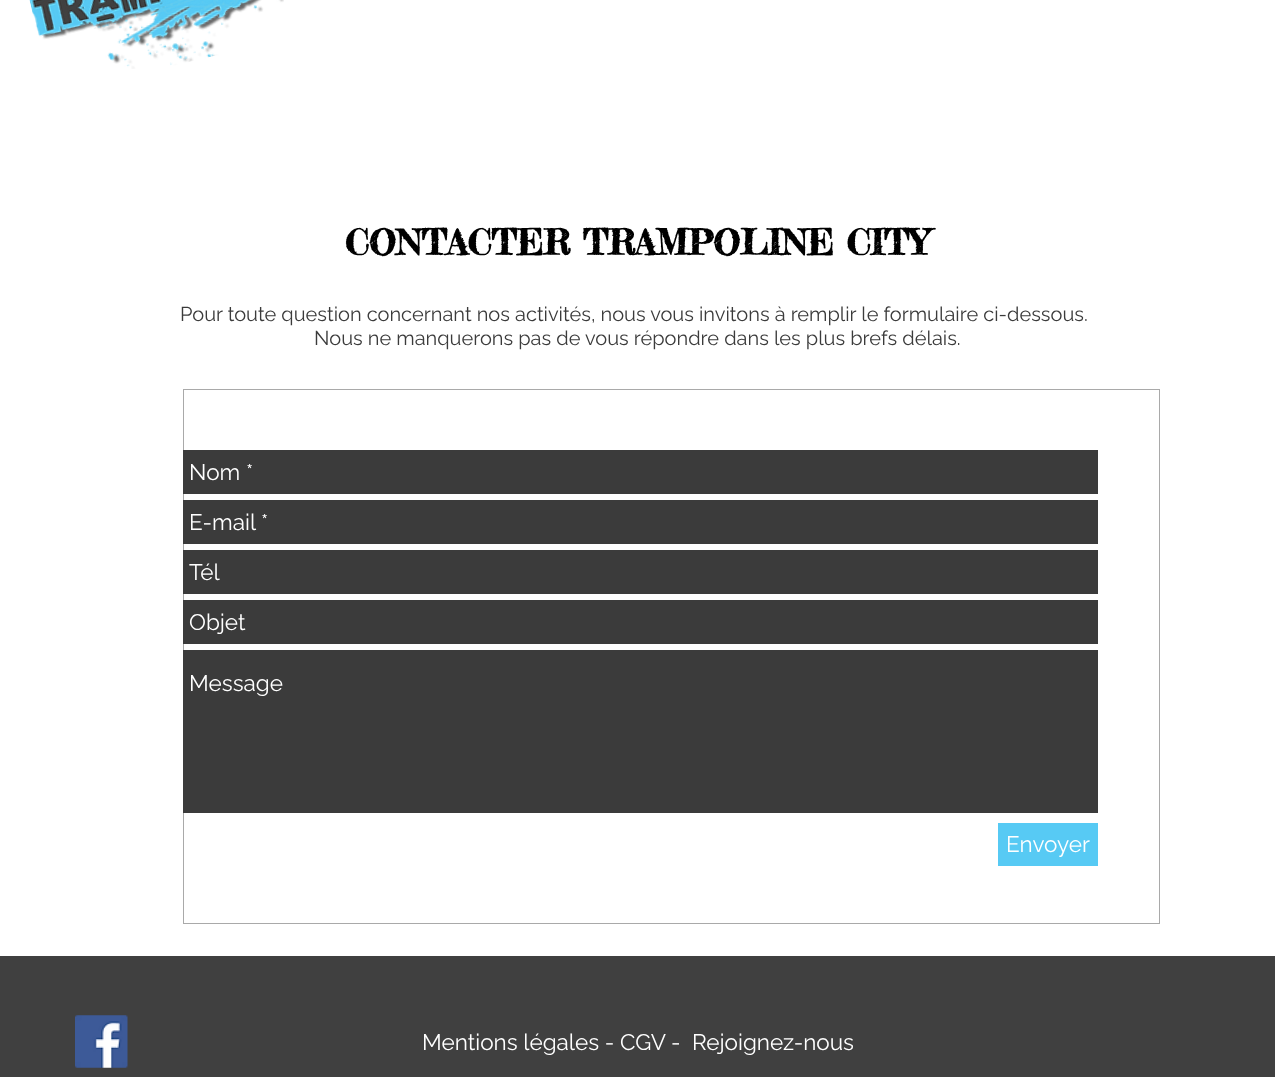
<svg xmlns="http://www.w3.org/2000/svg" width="1275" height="1077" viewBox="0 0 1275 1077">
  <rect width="100%" height="100%" fill="rgb(255,255,255)"/>
  <image x="29" y="0" width="255" height="69" href="pic1.png"/>
  <text x="345" y="255" font-family="Fredericka the Great" font-size="35" font-weight="bold" fill="rgb(0,0,0)">CONTACTER TRAMPOLINE CITY</text>
  <g font-family="Raleway" font-size="20" fill="rgb(59,59,59)">
    <text x="180" y="321">Pour toute question concernant nos activités, nous vous invitons à remplir le formulaire ci-dessous.</text>
    <text x="314" y="345">Nous ne manquerons pas de vous répondre dans les plus brefs délais.</text>
  </g>
  <rect x="183.5" y="389.5" width="976" height="534" fill="none" stroke="rgb(169,169,169)"/>
  <rect x="183" y="450" width="915" height="44" fill="rgb(59,59,59)"/>
  <text x="189" y="480" font-family="Raleway" font-size="22.5" fill="rgb(255,255,255)">Nom *</text>
  <rect x="183" y="500" width="915" height="44" fill="rgb(59,59,59)"/>
  <text x="189" y="530" font-family="Raleway" font-size="22.5" fill="rgb(255,255,255)">E-mail *</text>
  <rect x="183" y="550" width="915" height="44" fill="rgb(59,59,59)"/>
  <text x="189" y="580" font-family="Raleway" font-size="22.5" fill="rgb(255,255,255)">Tél</text>
  <rect x="183" y="600" width="915" height="44" fill="rgb(59,59,59)"/>
  <text x="189" y="630" font-family="Raleway" font-size="22.5" fill="rgb(255,255,255)">Objet</text>
  <rect x="183" y="650" width="915" height="163" fill="rgb(59,59,59)"/>
  <text x="189" y="691" font-family="Raleway" font-size="22.5" fill="rgb(255,255,255)">Message</text>
  <rect x="998" y="823" width="100" height="43" fill="rgb(87,202,244)"/>
  <text x="1006" y="852" font-family="Raleway" font-size="22.5" fill="rgb(255,255,255)">Envoyer</text>
  <rect x="0" y="956" width="1275" height="121" fill="rgb(64,64,64)"/>
  <image x="75" y="1015" width="53" height="53" href="pic2.png"/>
  <g font-family="Raleway" font-size="22.5" fill="rgb(255,255,255)">
    <text x="422" y="1050">Mentions légales - CGV</text>
    <text x="671" y="1050">-</text>
    <text x="692" y="1050">Rejoignez-nous</text>
  </g>
</svg>
